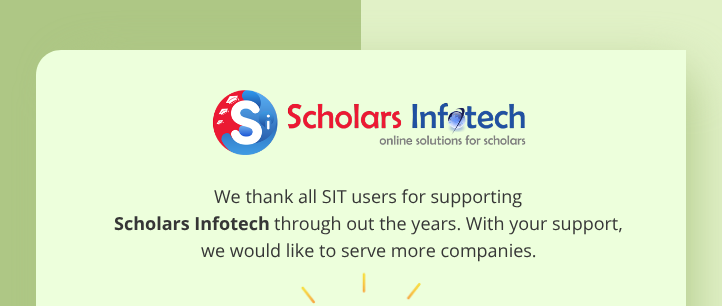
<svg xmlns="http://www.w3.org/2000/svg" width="722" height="306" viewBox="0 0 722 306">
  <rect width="100%" height="100%" fill="rgb(174,199,133)"/>
  <rect x="361" y="0" width="361" height="306" fill="rgb(225,241,199)"/>
  <rect x="71" y="70" width="620" height="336" rx="25" fill="rgb(174,199,133)" filter="blur(25px)"/>
  <path d="M61 50H686V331H61C47 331 36 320 36 306V75C36 61 47 50 61 50Z" fill="rgb(237,255,220)"/>
  <image x="212" y="90" width="314" height="65" href="pic1.png"/>
  <text x="214" y="203" font-family="Open Sans" font-size="18" fill="rgb(54,54,54)">We thank all SIT users for supporting</text>
  <text x="114" y="230" font-family="Open Sans" font-size="18" font-weight="bold" fill="rgb(54,54,54)">Scholars Infotech</text>
  <g font-family="Open Sans" font-size="18" fill="rgb(54,54,54)">
    <text x="274" y="230">through out the years. With your support,</text>
    <text x="201" y="257">we would like to serve more companies.</text>
  </g>
  <image x="300" y="272" width="121" height="32" href="pic2.png"/>
</svg>
